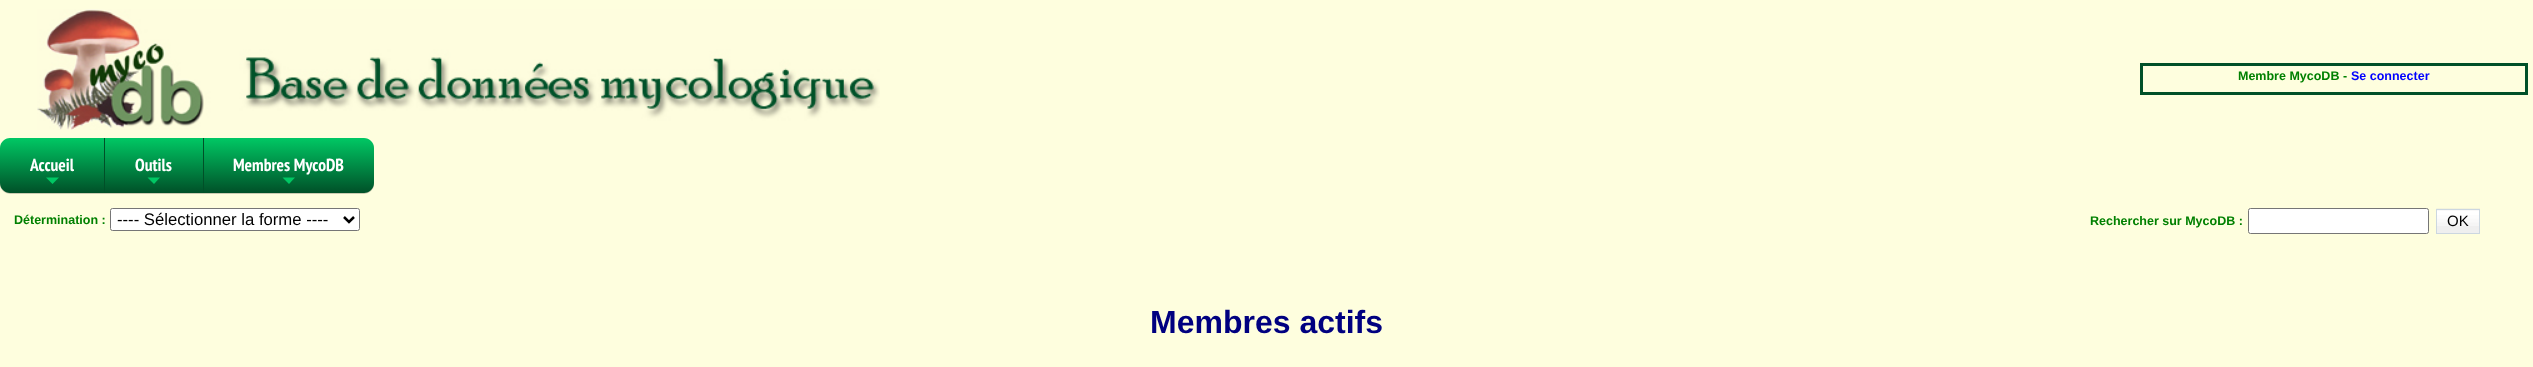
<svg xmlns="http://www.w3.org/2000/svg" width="2533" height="367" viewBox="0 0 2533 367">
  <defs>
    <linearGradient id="g1" gradientUnits="userSpaceOnUse" x1="52" y1="138" x2="52" y2="193"><stop offset="0" stop-color="rgb(0,200,100)"/><stop offset="1" stop-color="rgb(0,80,40)"/></linearGradient>
    <linearGradient id="g2" gradientUnits="userSpaceOnUse" x1="154" y1="138" x2="154" y2="193"><stop offset="0" stop-color="rgb(0,200,100)"/><stop offset="1" stop-color="rgb(0,80,40)"/></linearGradient>
    <linearGradient id="g3" gradientUnits="userSpaceOnUse" x1="289" y1="138" x2="289" y2="193"><stop offset="0" stop-color="rgb(0,200,100)"/><stop offset="1" stop-color="rgb(0,80,40)"/></linearGradient>
  </defs>
  <rect width="100%" height="100%" fill="rgb(254,254,222)"/>
  <image x="37" y="9" width="843" height="121" href="pic1.png"/>
  <rect x="2141.5" y="64.5" width="385" height="29" fill="none" stroke="rgb(0,80,40)" stroke-width="3"/>
  <text x="2238" y="80" font-family="Liberation Sans" font-size="12.5" font-weight="bold" fill="rgb(0,128,0)">Membre MycoDB -</text>
  <text x="2351" y="80" font-family="Liberation Sans" font-size="12.5" font-weight="bold" fill="rgb(0,0,255)">Se connecter</text>
  <rect x="0" y="139" width="374" height="55" rx="10" fill="rgba(0,0,0,0.2)" filter="blur(0.5px)"/>
  <path d="M10 138H104V193H10C4.5 193 0 188.5 0 183V148C0 142.5 4.5 138 10 138Z" fill="url(#g1)"/>
  <text x="30" y="171" font-family="PT Sans Narrow" font-size="17.5" font-weight="bold" fill="rgb(255,255,255)">Accueil</text>
  <path d="M46 177.5H59L52.5 184Z" fill="rgb(0,200,100)"/>
  <rect x="104" y="138" width="1" height="55" fill="rgb(0,80,40)"/>
  <rect x="105" y="138" width="98" height="55" fill="url(#g2)"/>
  <text x="135" y="171" font-family="PT Sans Narrow" font-size="17.5" font-weight="bold" fill="rgb(255,255,255)">Outils</text>
  <path d="M147.5 177.5H160L154 184Z" fill="rgb(0,200,100)"/>
  <rect x="203" y="138" width="1" height="55" fill="rgb(0,80,40)"/>
  <path d="M204 138H364C369.5 138 374 142.5 374 148V183C374 188.5 369.5 193 364 193H204Z" fill="url(#g3)"/>
  <text x="233" y="171" font-family="PT Sans Narrow" font-size="17.5" font-weight="bold" fill="rgb(255,255,255)">Membres MycoDB</text>
  <path d="M282.5 177.5H295L289 184Z" fill="rgb(0,200,100)"/>
  <text x="14" y="224" font-family="Liberation Sans" font-size="12.5" font-weight="bold" fill="rgb(0,128,0)">Détermination :</text>
  <rect x="110.5" y="208.5" width="249" height="22" rx="2" fill="rgb(255,255,255)" stroke="rgb(118,118,118)"/>
  <path d="M344 217L349 222L354 217" fill="none" stroke="rgb(0,0,0)" stroke-width="2.5"/>
  <text x="117" y="225" font-family="Liberation Sans" font-size="16.7" fill="rgb(0,0,0)">---- Sélectionner la forme ----</text>
  <text x="2090" y="225" font-family="Liberation Sans" font-size="12.5" font-weight="bold" fill="rgb(0,128,0)">Rechercher sur MycoDB :</text>
  <rect x="2248.5" y="208.5" width="180" height="25" rx="2" fill="rgb(255,255,255)" stroke="rgb(118,118,118)"/>
  <rect x="2437" y="226" width="42" height="7" fill="rgb(239,239,239)"/>
  <image x="2436" y="208" width="44" height="18" href="pic2.png"/>
  <rect x="2436.5" y="209.5" width="43" height="24" fill="none" stroke="rgb(204,215,224)"/>
  <text x="2447" y="226" font-family="Liberation Sans" font-size="15" fill="rgb(0,0,0)">OK</text>
  <text x="1150" y="333" font-family="Liberation Sans" font-size="32" font-weight="bold" fill="rgb(0,0,128)">Membres actifs</text>
</svg>
